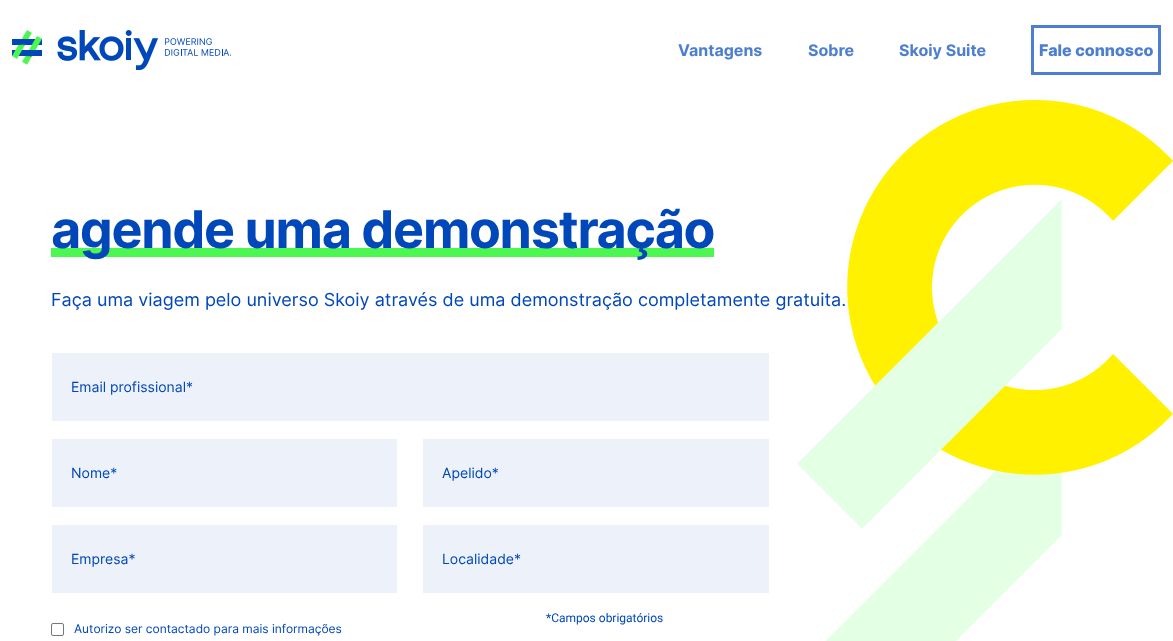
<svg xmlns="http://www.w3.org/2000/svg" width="1173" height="641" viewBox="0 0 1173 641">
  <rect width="100%" height="100%" fill="rgb(255,255,255)"/>
  <image x="12" y="30" width="219" height="40" href="pic1.png"/>
  <g font-family="Inter" font-size="16" font-weight="bold" fill="rgb(77,126,207)">
    <text x="678" y="56">Vantagens</text>
    <text x="808" y="56">Sobre</text>
    <text x="899" y="56">Skoiy Suite</text>
  </g>
  <rect x="1032.5" y="26.5" width="127" height="47" fill="none" stroke="rgb(77,126,207)" stroke-width="3"/>
  <text x="1039" y="56" font-family="Inter" font-size="16" font-weight="800" fill="rgb(77,126,207)">Fale connosco</text>
  <rect x="51" y="248" width="663" height="9" fill="rgb(77,247,81)"/>
  <text x="51" y="248" font-family="Inter" font-size="52" font-weight="bold" letter-spacing="-1.3" fill="rgb(0,71,186)">agende uma demonstração</text>
  <image x="797" y="100" width="376" height="541" href="pic2.png"/>
  <text x="51" y="306" font-family="Inter" font-size="18" fill="rgb(0,71,186)">Faça uma viagem pelo universo Skoiy através de uma demonstração completamente gratuita.</text>
  <rect x="52" y="353" width="717" height="68" fill="rgb(237,242,250)"/>
  <text x="71" y="392" font-family="Inter" font-size="14" fill="rgb(0,71,186)">Email profissional*</text>
  <rect x="52" y="439" width="345" height="68" fill="rgb(237,242,250)"/>
  <text x="71" y="478" font-family="Inter" font-size="14" fill="rgb(0,71,186)">Nome*</text>
  <rect x="52" y="525" width="345" height="68" fill="rgb(237,242,250)"/>
  <text x="71" y="564" font-family="Inter" font-size="14" fill="rgb(0,71,186)">Empresa*</text>
  <rect x="423" y="439" width="346" height="68" fill="rgb(237,242,250)"/>
  <text x="442" y="478" font-family="Inter" font-size="14" fill="rgb(0,71,186)">Apelido*</text>
  <rect x="423" y="525" width="346" height="68" fill="rgb(237,242,250)"/>
  <text x="442" y="564" font-family="Inter" font-size="14" fill="rgb(0,71,186)">Localidade*</text>
  <text x="546" y="622" font-family="Roboto" font-size="12" fill="rgb(0,71,186)">*Campos obrigatórios</text>
  <rect x="51.5" y="623.5" width="12" height="12" rx="1.5" fill="none" stroke="rgb(118,118,118)"/>
  <text x="74" y="633" font-family="Inter" font-size="12" fill="rgb(0,71,186)">Autorizo ser contactado para mais informações</text>
</svg>
